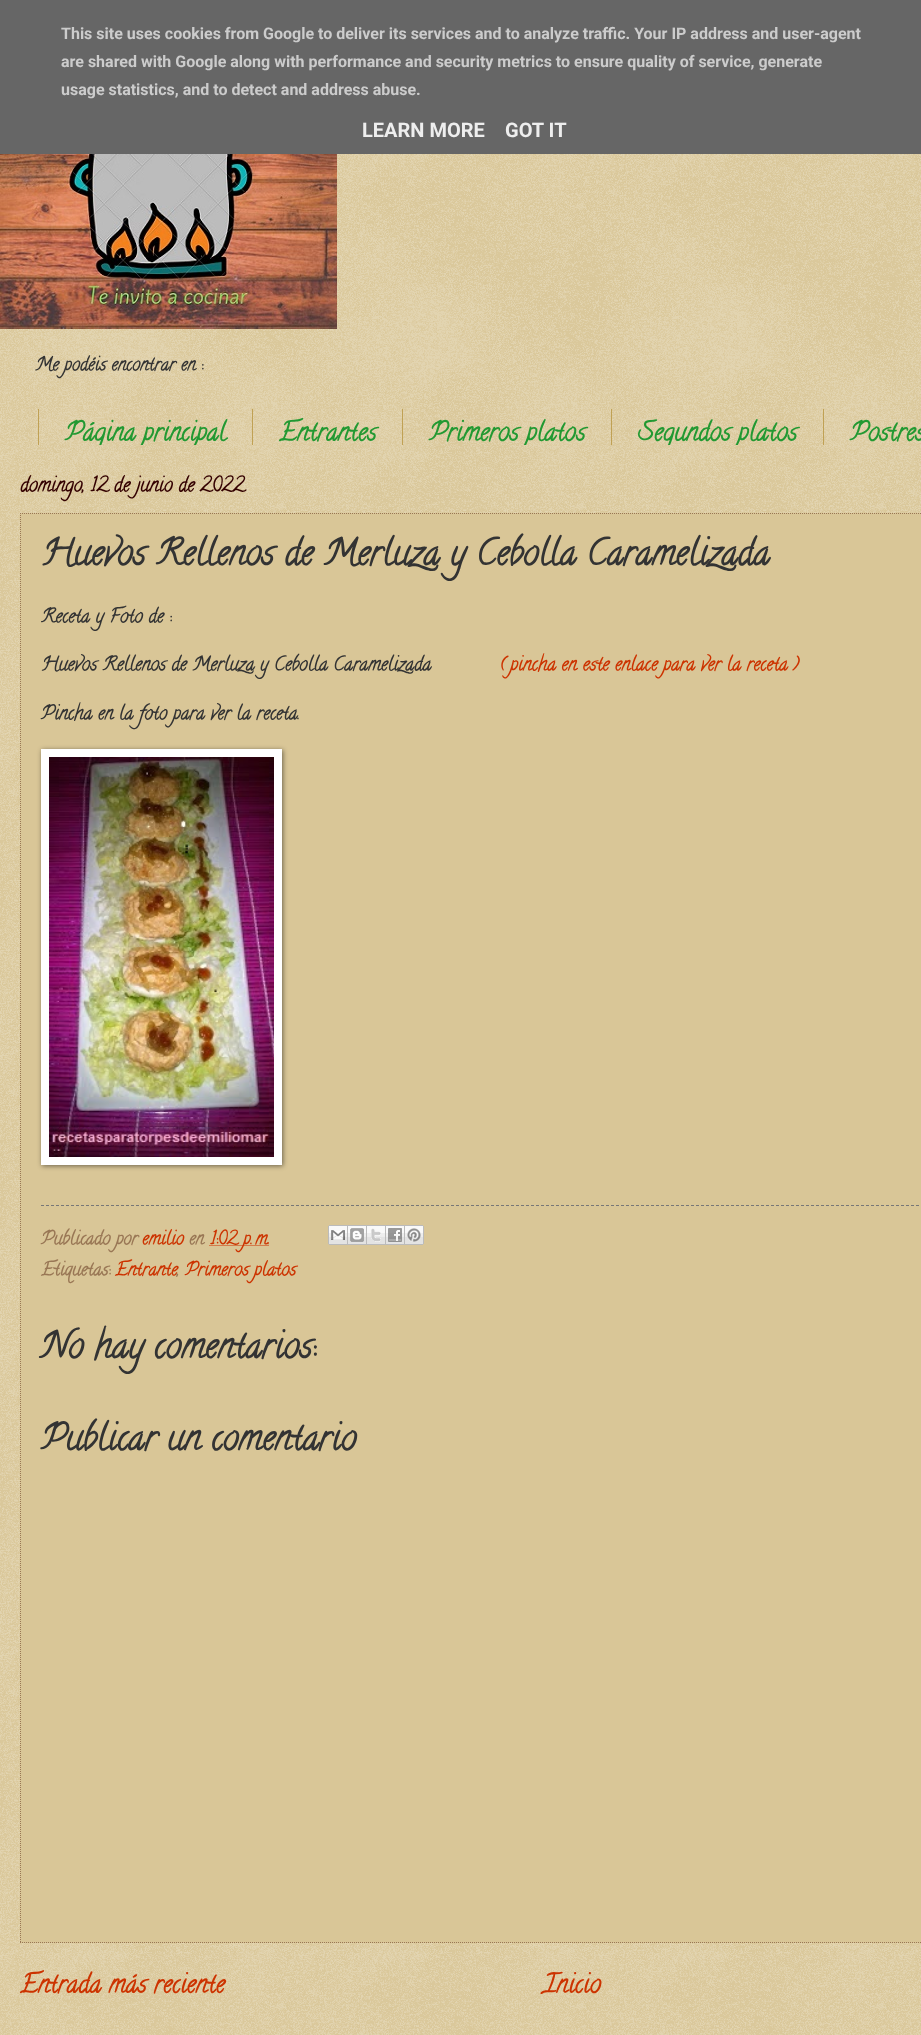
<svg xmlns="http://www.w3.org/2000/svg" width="921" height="2035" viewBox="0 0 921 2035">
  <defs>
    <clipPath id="clip1"><rect x="13" y="407" width="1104" height="38"/></clipPath>
  </defs>
  <rect width="100%" height="100%" fill="rgb(192,161,84)"/>
  <image x="0" y="154" width="921" height="1881" href="pic1.png"/>
  <rect x="0" y="0" width="921" height="154" fill="rgb(102,102,102)"/>
  <g font-family="Roboto" font-size="16" font-weight="bold" fill="rgb(204,204,204)">
    <text>
      <tspan x="61" y="39">This site uses cookies from Google to deliver its services and to analyze traffic. Your IP address and user-agent</tspan>
      <tspan x="61" y="67">are shared with Google along with performance and security metrics to ensure quality of service, generate</tspan>
      <tspan x="61" y="95">usage statistics, and to detect and address abuse.</tspan>
    </text>
  </g>
  <g font-family="Roboto" font-size="20" font-weight="bold" fill="rgb(238,238,238)">
    <text x="362" y="137">LEARN MORE</text>
    <text x="505" y="137">GOT IT</text>
  </g>
  <image x="0" y="154" width="337" height="175" href="pic2.png"/>
  <text x="35" y="370" font-family="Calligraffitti" font-size="18.5" font-weight="bold" fill="rgb(51,51,51)">Me podéis encontrar en :</text>
  <rect x="252" y="409" width="1" height="36" fill="rgb(192,161,84)"/>
  <rect x="38" y="409" width="1" height="36" fill="rgb(192,161,84)"/>
  <g clip-path="url(#clip1)">
    <text x="65" y="440" font-family="Calligraffitti" font-size="26" font-weight="bold" fill="rgb(34,153,50)">Página principal</text>
  </g>
  <rect x="402" y="409" width="1" height="36" fill="rgb(192,161,84)"/>
  <text x="279" y="440" font-family="Calligraffitti" font-size="26" font-weight="bold" fill="rgb(34,153,50)">Entrantes</text>
  <rect x="611" y="409" width="1" height="36" fill="rgb(192,161,84)"/>
  <g clip-path="url(#clip1)">
    <text x="429" y="440" font-family="Calligraffitti" font-size="26" font-weight="bold" fill="rgb(34,153,50)">Primeros platos</text>
  </g>
  <rect x="823" y="409" width="1" height="36" fill="rgb(192,161,84)"/>
  <g clip-path="url(#clip1)">
    <text x="638" y="440" font-family="Calligraffitti" font-size="26" font-weight="bold" fill="rgb(34,153,50)">Segundos platos</text>
  </g>
  <text x="850" y="440" font-family="Calligraffitti" font-size="26" font-weight="bold" fill="rgb(34,153,50)">Postres</text>
  <text x="20" y="491" font-family="Calligraffitti" font-size="20" font-weight="bold" fill="rgb(51,0,0)">domingo, 12 de junio de 2022</text>
  <rect x="20" y="513" width="901" height="1430" fill="rgb(217,198,151)"/>
  <path d="M20 513.5H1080" fill="none" stroke="rgb(153,119,85)" stroke-dasharray="1 1"/>
  <path d="M20 1942.5H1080" fill="none" stroke="rgb(153,119,85)" stroke-dasharray="1 1"/>
  <path d="M20.5 513V1943" fill="none" stroke="rgb(153,119,85)" stroke-dasharray="1 1"/>
  <text x="41" y="564" font-family="Calligraffitti" font-size="36" font-weight="bold" fill="rgb(51,51,51)">Huevos Rellenos de Merluza y Cebolla Caramelizada</text>
  <g font-family="Calligraffitti" font-size="19.3" font-weight="bold" fill="rgb(51,51,51)">
    <text x="41" y="622">Receta y Foto de :</text>
    <text x="41" y="670">Huevos Rellenos de Merluza y Cebolla Caramelizada</text>
  </g>
  <text x="499" y="670" font-family="Calligraffitti" font-size="19.3" font-weight="bold" fill="rgb(204,51,0)">( pincha en este enlace para ver la receta )</text>
  <text x="41" y="719" font-family="Calligraffitti" font-size="19.3" font-weight="bold" fill="rgb(51,51,51)">Pincha en la foto para ver la receta.</text>
  <rect x="42" y="750" width="241" height="416" fill="rgba(0,0,0,0.5)" filter="blur(2.5px)"/>
  <rect x="41" y="749" width="241" height="416" fill="rgb(255,255,255)"/>
  <image x="49" y="757" width="225" height="400" href="pic3.png"/>
  <path d="M41 1205.5H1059" fill="none" stroke="rgb(119,119,119)" stroke-dasharray="3 2"/>
  <text x="41" y="1244" font-family="Calligraffitti" font-size="18.5" font-weight="bold" fill="rgb(153,119,85)">Publicado por</text>
  <text x="142" y="1244" font-family="Calligraffitti" font-size="18.5" font-weight="bold" fill="rgb(204,51,0)">emilio</text>
  <text x="189" y="1244" font-family="Calligraffitti" font-size="18.5" font-weight="bold" fill="rgb(153,119,85)">en</text>
  <path d="M209.5 1245.5H269" fill="none" stroke="rgb(204,51,0)" stroke-dasharray="1 1"/>
  <text x="210" y="1244" font-family="Calligraffitti" font-size="18.5" font-weight="bold" fill="rgb(204,51,0)">1:02 p. m.</text>
  <image x="328" y="1225" width="20" height="20" href="pic4.png"/>
  <image x="348" y="1225" width="19" height="20" href="pic5.png"/>
  <image x="367" y="1225" width="19" height="20" href="pic6.png"/>
  <image x="386" y="1225" width="19" height="20" href="pic7.png"/>
  <image x="405" y="1225" width="19" height="20" href="pic8.png"/>
  <text x="41" y="1275" font-family="Calligraffitti" font-size="18.5" font-weight="bold" fill="rgb(153,119,85)">Etiquetas:</text>
  <g font-family="Calligraffitti" font-size="18.5" font-weight="bold" fill="rgb(204,51,0)">
    <text x="115" y="1275">Entrante</text>
    <text x="185" y="1275">Primeros platos</text>
  </g>
  <text x="177" y="1275" font-family="Calligraffitti" font-size="18.5" font-weight="bold" fill="rgb(153,119,85)">,</text>
  <g font-family="Calligraffitti" font-size="36" font-weight="bold" fill="rgb(51,51,51)">
    <text x="41" y="1357">No hay comentarios:</text>
    <text x="41" y="1449">Publicar un comentario</text>
  </g>
  <g font-family="Calligraffitti" font-size="25.75" font-weight="bold" fill="rgb(204,51,0)">
    <text x="20" y="1992">Entrada más reciente</text>
    <text x="543" y="1992">Inicio</text>
  </g>
</svg>
